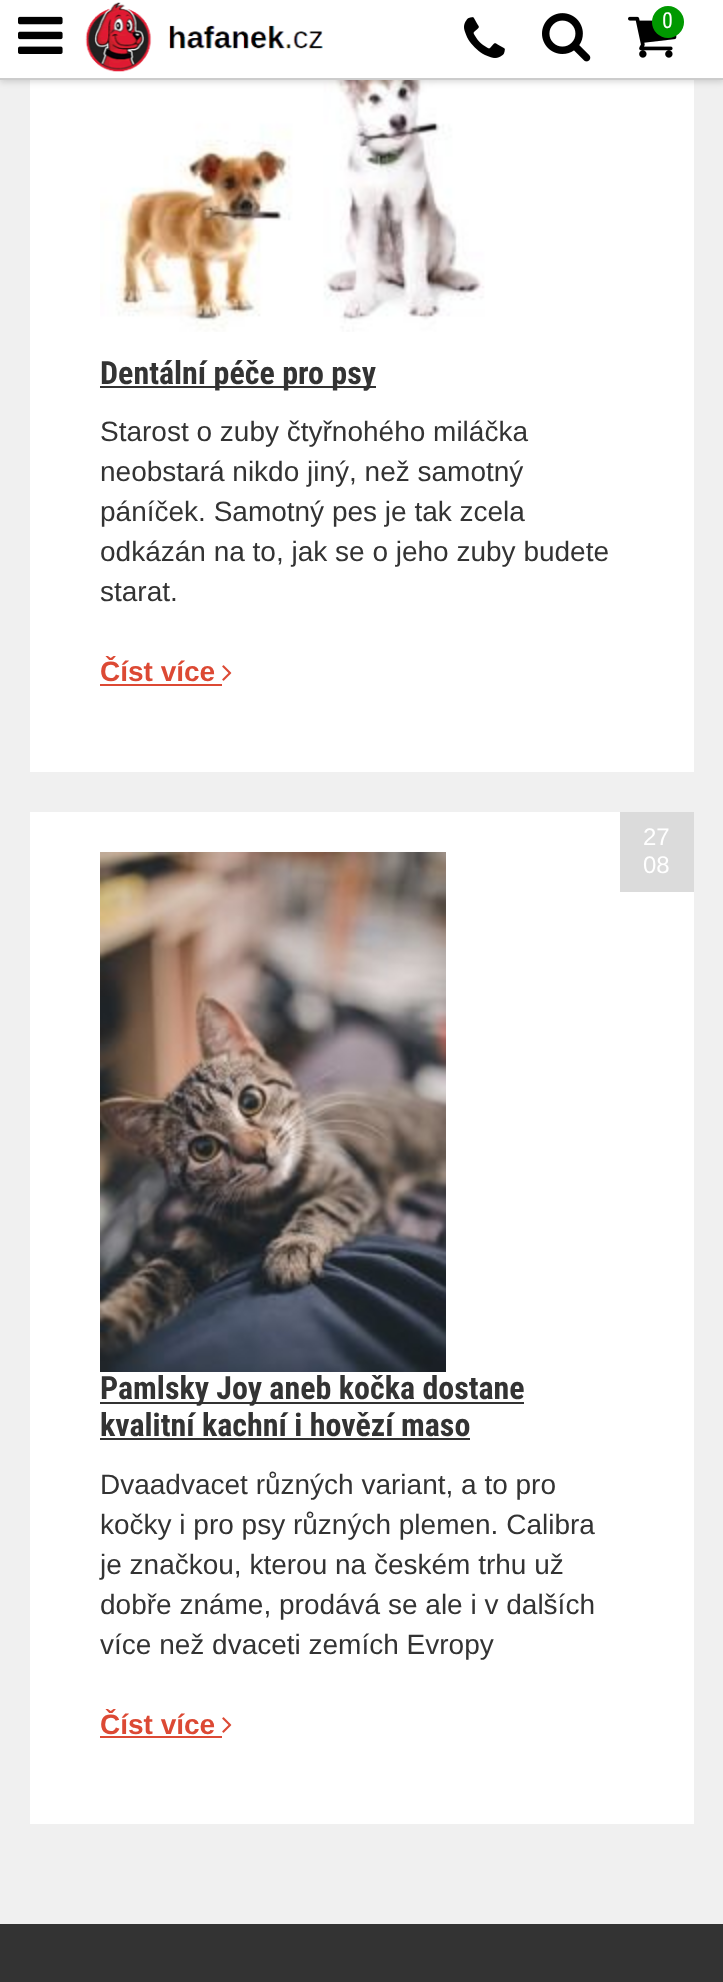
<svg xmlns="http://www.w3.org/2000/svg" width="723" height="1982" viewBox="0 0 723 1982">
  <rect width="100%" height="100%" fill="rgb(240,240,240)"/>
  <rect x="30" y="80" width="664" height="692" fill="rgb(255,255,255)"/>
  <image x="100" y="80" width="385" height="252" href="pic6.png"/>
  <rect x="0" y="2" width="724" height="80" fill="rgba(0,0,0,0.15)" filter="blur(3px)"/>
  <rect x="0" y="0" width="723" height="78" fill="rgb(255,255,255)"/>
  <rect x="0" y="78" width="723" height="2" fill="rgb(204,204,204)"/>
  <image x="18" y="16" width="45" height="38" href="pic1.png"/>
  <image x="85" y="2" width="238" height="70" href="pic2.png"/>
  <image x="464" y="17" width="41" height="41" href="pic3.png"/>
  <image x="542" y="13" width="49" height="49" href="pic4.png"/>
  <image x="628" y="16" width="49" height="42" href="pic5.png"/>
  <circle cx="668" cy="22" r="16" fill="rgb(0,153,0)"/>
  <text x="662" y="28" font-family="Roboto Condensed" font-size="22" fill="rgb(255,255,255)">0</text>
  <rect x="100" y="386" width="276" height="2" fill="rgb(51,51,51)"/>
  <text x="100" y="384" font-family="Roboto Condensed" font-size="32" font-weight="bold" fill="rgb(51,51,51)">Dentální péče pro psy</text>
  <g font-family="Arimo" font-size="28" fill="rgb(51,51,51)">
    <text>
      <tspan x="100" y="441">Starost o zuby čtyřnohého miláčka</tspan>
      <tspan x="100" y="481">neobstará nikdo jiný, než samotný</tspan>
      <tspan x="100" y="521">páníček. Samotný pes je tak zcela</tspan>
      <tspan x="100" y="561">odkázán na to, jak se o jeho zuby budete</tspan>
      <tspan x="100" y="601">starat.</tspan>
    </text>
  </g>
  <text x="100" y="681" font-family="Arimo" font-size="28" font-weight="bold" fill="rgb(220,73,52)">Číst více</text>
  <rect x="100" y="684" width="122" height="2" fill="rgb(220,73,52)"/>
  <image x="222" y="665" width="10" height="16" href="pic7.png"/>
  <rect x="30" y="812" width="664" height="1012" fill="rgb(255,255,255)"/>
  <image x="100" y="852" width="346" height="520" href="pic8.png"/>
  <rect x="620" y="812" width="74" height="80" fill="rgb(219,219,219)"/>
  <g font-family="Arimo" font-size="24" fill="rgb(255,255,255)">
    <text>
      <tspan x="643" y="845">27</tspan>
      <tspan x="643" y="873">08</tspan>
    </text>
  </g>
  <rect x="100" y="1402" width="424" height="2" fill="rgb(51,51,51)"/>
  <g font-family="Roboto Condensed" font-size="32" font-weight="bold" fill="rgb(51,51,51)">
    <text>
      <tspan x="100" y="1399">Pamlsky Joy aneb kočka dostane</tspan>
      <tspan x="100" y="1436">kvalitní kachní i hovězí maso</tspan>
    </text>
  </g>
  <rect x="100" y="1438" width="370" height="2" fill="rgb(51,51,51)"/>
  <g font-family="Arimo" font-size="28" fill="rgb(51,51,51)">
    <text>
      <tspan x="100" y="1494">Dvaadvacet různých variant, a to pro</tspan>
      <tspan x="100" y="1534">kočky i pro psy různých plemen. Calibra</tspan>
      <tspan x="100" y="1574">je značkou, kterou na českém trhu už</tspan>
      <tspan x="100" y="1614">dobře známe, prodává se ale i v dalších</tspan>
      <tspan x="100" y="1654">více než dvaceti zemích Evropy</tspan>
    </text>
  </g>
  <text x="100" y="1734" font-family="Arimo" font-size="28" font-weight="bold" fill="rgb(220,73,52)">Číst více</text>
  <rect x="100" y="1736" width="122" height="2" fill="rgb(220,73,52)"/>
  <image x="222" y="1717" width="10" height="16" href="pic7.png"/>
  <rect x="0" y="1924" width="723" height="58" fill="rgb(51,51,51)"/>
</svg>
